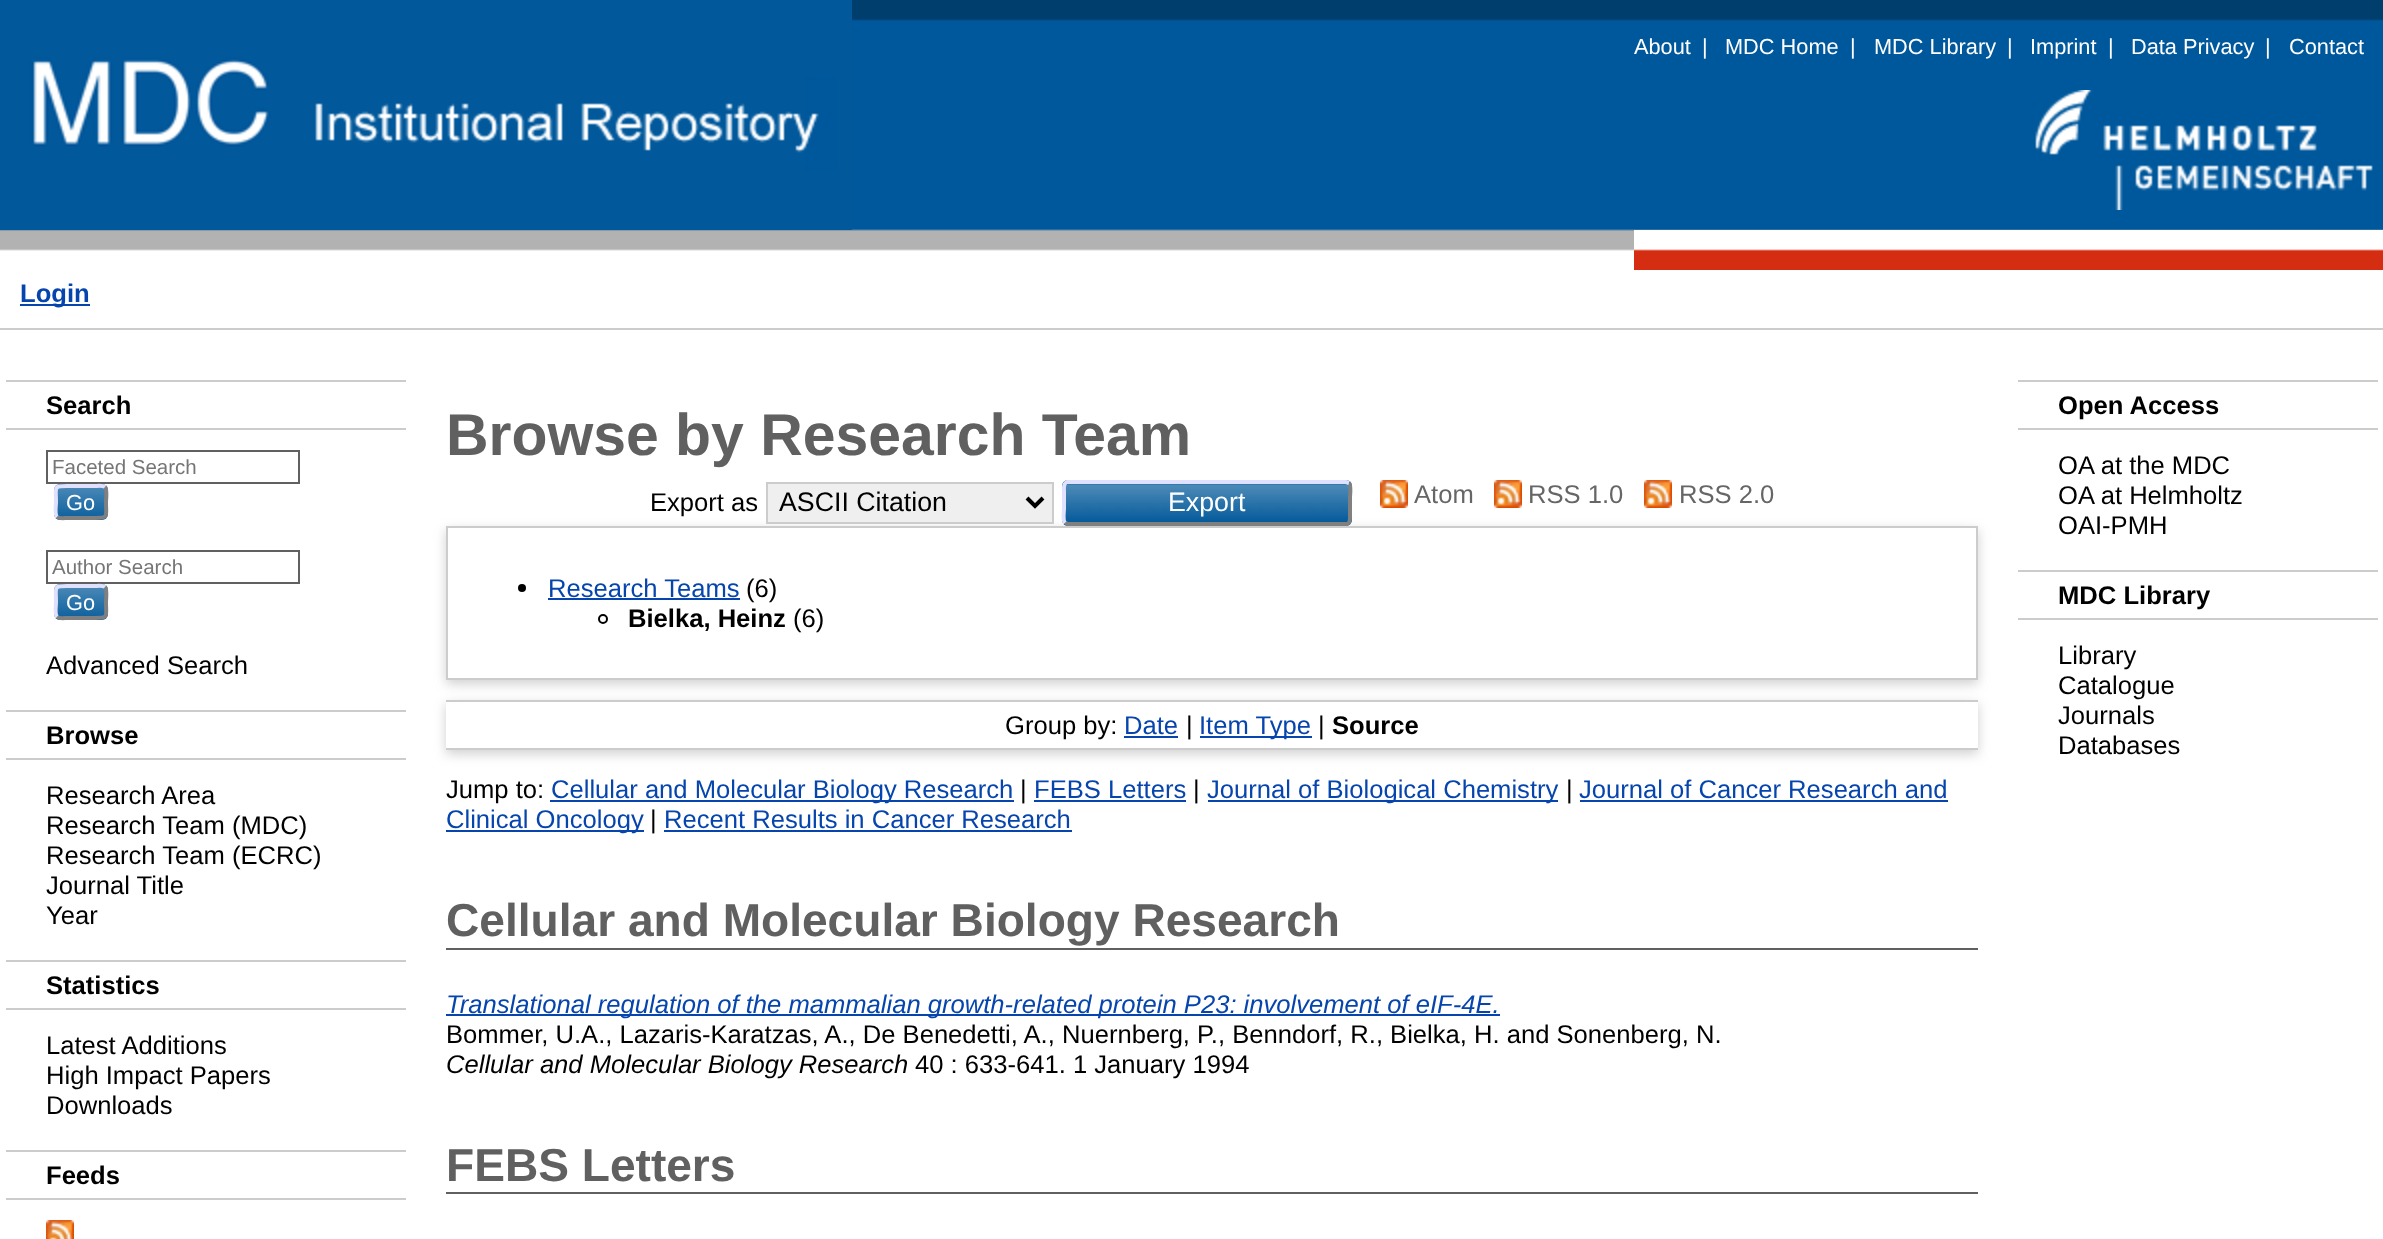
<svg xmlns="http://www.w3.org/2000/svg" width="2383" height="1239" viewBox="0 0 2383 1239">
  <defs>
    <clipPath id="clip1"><path d="M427 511H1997V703H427ZM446 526H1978V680H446Z" clip-rule="evenodd"/></clipPath>
    <clipPath id="clip2"><path d="M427 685H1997V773H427ZM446 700H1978V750H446Z" clip-rule="evenodd"/></clipPath>
  </defs>
  <rect width="100%" height="100%" fill="rgb(255,255,255)"/>
  <image x="0" y="0" width="2383" height="251" href="pic1.png"/>
  <image x="0" y="0" width="852" height="230" href="pic2.png"/>
  <image x="1634" y="230" width="749" height="40" href="pic3.png"/>
  <g font-family="Liberation Sans" font-size="21.75" fill="rgb(255,255,255)">
    <text x="1634" y="54">About</text>
    <text x="1702" y="54">|</text>
    <text x="1725" y="54">MDC Home</text>
    <text x="1850" y="54">|</text>
    <text x="1874" y="54">MDC Library</text>
    <text x="2007" y="54">|</text>
    <text x="2030" y="54">Imprint</text>
    <text x="2108" y="54">|</text>
    <text x="2131" y="54">Data Privacy</text>
    <text x="2265" y="54">|</text>
    <text x="2289" y="54">Contact</text>
  </g>
  <image x="2035" y="90" width="338" height="120" href="pic4.png"/>
  <rect x="20" y="304" width="70" height="2" fill="rgb(6,69,173)"/>
  <text x="20" y="302" font-family="Liberation Sans" font-size="25.6" font-weight="bold" fill="rgb(6,69,173)">Login</text>
  <rect x="0" y="328" width="2383" height="2" fill="rgb(204,204,204)"/>
  <rect x="6" y="380" width="400" height="2" fill="rgb(204,204,204)"/>
  <rect x="6" y="428" width="400" height="2" fill="rgb(204,204,204)"/>
  <text x="46" y="414" font-family="Liberation Sans" font-size="25.6" font-weight="bold" fill="rgb(0,0,0)">Search</text>
  <rect x="47" y="451" width="252" height="32" fill="none" stroke="rgb(96,96,96)" stroke-width="2"/>
  <text x="52" y="474" font-family="Liberation Sans" font-size="20.5" fill="rgb(117,117,117)">Faceted Search</text>
  <rect x="54" y="484" width="54" height="36" rx="6" fill="rgb(0,88,153)"/>
  <image x="54" y="484" width="54" height="36" href="pic5.png"/>
  <path d="M105 487C107.5 489.5 106 499 106 502C106 517 109 518 95 518H67C65 518 59.5 519 57 517" fill="none" stroke="rgb(128,128,128)" stroke-width="4"/>
  <path d="M57 517C54.5 514.5 56 505 56 502C56 487 53 486 67 486H95C97 486 102.5 485 105 487" fill="none" stroke="rgb(224,224,255)" stroke-width="4"/>
  <text x="66" y="510" font-family="Liberation Sans" font-size="21.75" fill="rgb(255,255,255)">Go</text>
  <rect x="47" y="551" width="252" height="32" fill="none" stroke="rgb(96,96,96)" stroke-width="2"/>
  <text x="52" y="574" font-family="Liberation Sans" font-size="20.5" fill="rgb(117,117,117)">Author Search</text>
  <rect x="54" y="584" width="54" height="36" rx="6" fill="rgb(0,88,153)"/>
  <image x="54" y="584" width="54" height="36" href="pic5.png"/>
  <path d="M105 587C107.5 589.5 106 599 106 602C106 617 109 618 95 618H67C65 618 59.5 619 57 617" fill="none" stroke="rgb(128,128,128)" stroke-width="4"/>
  <path d="M57 617C54.5 614.5 56 605 56 602C56 587 53 586 67 586H95C97 586 102.5 585 105 587" fill="none" stroke="rgb(224,224,255)" stroke-width="4"/>
  <text x="66" y="610" font-family="Liberation Sans" font-size="21.75" fill="rgb(255,255,255)">Go</text>
  <text x="46" y="674" font-family="Liberation Sans" font-size="25.6" fill="rgb(0,0,0)">Advanced Search</text>
  <rect x="6" y="710" width="400" height="2" fill="rgb(204,204,204)"/>
  <rect x="6" y="758" width="400" height="2" fill="rgb(204,204,204)"/>
  <text x="46" y="744" font-family="Liberation Sans" font-size="25.6" font-weight="bold" fill="rgb(0,0,0)">Browse</text>
  <g font-family="Liberation Sans" font-size="25.6" fill="rgb(0,0,0)">
    <text>
      <tspan x="46" y="804">Research Area</tspan>
      <tspan x="46" y="834">Research Team (MDC)</tspan>
      <tspan x="46" y="864">Research Team (ECRC)</tspan>
      <tspan x="46" y="894">Journal Title</tspan>
      <tspan x="46" y="924">Year</tspan>
    </text>
  </g>
  <rect x="6" y="960" width="400" height="2" fill="rgb(204,204,204)"/>
  <rect x="6" y="1008" width="400" height="2" fill="rgb(204,204,204)"/>
  <text x="46" y="994" font-family="Liberation Sans" font-size="25.6" font-weight="bold" fill="rgb(0,0,0)">Statistics</text>
  <g font-family="Liberation Sans" font-size="25.6" fill="rgb(0,0,0)">
    <text>
      <tspan x="46" y="1054">Latest Additions</tspan>
      <tspan x="46" y="1084">High Impact Papers</tspan>
      <tspan x="46" y="1114">Downloads</tspan>
    </text>
  </g>
  <rect x="6" y="1150" width="400" height="2" fill="rgb(204,204,204)"/>
  <rect x="6" y="1198" width="400" height="2" fill="rgb(204,204,204)"/>
  <text x="46" y="1184" font-family="Liberation Sans" font-size="25.6" font-weight="bold" fill="rgb(0,0,0)">Feeds</text>
  <image x="46" y="1220" width="28" height="19" href="pic6.png"/>
  <text x="446" y="455" font-family="Liberation Sans" font-size="58.9" font-weight="bold" fill="rgb(96,96,96)">Browse by Research Team</text>
  <g clip-path="url(#clip1)">
    <rect x="446" y="530" width="1532" height="154" fill="rgba(100,100,100,0.3)" filter="blur(6px)"/>
  </g>
  <text x="650" y="511" font-family="Liberation Sans" font-size="25.6" fill="rgb(0,0,0)">Export as</text>
  <rect x="767" y="483" width="286" height="40" fill="rgb(239,239,239)" stroke="rgb(204,204,204)" stroke-width="2"/>
  <path d="M1027 498L1035 506L1043 498" fill="none" stroke="rgb(0,0,0)" stroke-width="4"/>
  <text x="779" y="511" font-family="Liberation Sans" font-size="26.75" fill="rgb(0,0,0)">ASCII Citation</text>
  <rect x="1062" y="480" width="290" height="46" rx="6" fill="rgb(0,88,153)"/>
  <image x="1062" y="483" width="290" height="39" href="pic7.png"/>
  <path d="M1349 483C1351.5 485.5 1350 494.5 1350 497.5V514.5C1350 517 1351 522.5 1347 524H1068L1065 523" fill="none" stroke="rgb(128,128,128)" stroke-width="4"/>
  <path d="M1065 523C1062.5 520.5 1064 511.5 1064 508.5V491.5C1064 489 1063 483.5 1067 482H1346L1349 483" fill="none" stroke="rgb(224,224,255)" stroke-width="4"/>
  <text x="1168" y="511" font-family="Liberation Sans" font-size="26.75" fill="rgb(255,255,255)">Export</text>
  <image x="1380" y="480" width="28" height="28" href="pic8.png"/>
  <text x="1414" y="503" font-family="Liberation Sans" font-size="25.6" fill="rgb(102,102,102)">Atom</text>
  <image x="1494" y="480" width="28" height="28" href="pic8.png"/>
  <text x="1528" y="503" font-family="Liberation Sans" font-size="25.6" fill="rgb(102,102,102)">RSS 1.0</text>
  <image x="1644" y="480" width="28" height="28" href="pic8.png"/>
  <text x="1679" y="503" font-family="Liberation Sans" font-size="25.6" fill="rgb(102,102,102)">RSS 2.0</text>
  <rect x="447" y="527" width="1530" height="152" fill="none" stroke="rgb(204,204,204)" stroke-width="2"/>
  <circle cx="522" cy="588" r="4" fill="rgb(0,0,0)"/>
  <text x="548" y="597" font-family="Liberation Sans" font-size="25.6" fill="rgb(6,69,173)">Research Teams</text>
  <rect x="548" y="598" width="192" height="2" fill="rgb(6,69,173)"/>
  <text x="746" y="597" font-family="Liberation Sans" font-size="25.6" fill="rgb(0,0,0)">(6)</text>
  <circle cx="603" cy="619" r="4" fill="none" stroke="rgb(0,0,0)" stroke-width="2"/>
  <text x="628" y="627" font-family="Liberation Sans" font-size="25.6" font-weight="bold" fill="rgb(0,0,0)">Bielka, Heinz</text>
  <text x="793" y="627" font-family="Liberation Sans" font-size="25.6" fill="rgb(0,0,0)">(6)</text>
  <g clip-path="url(#clip2)">
    <rect x="446" y="704" width="1532" height="50" fill="rgba(100,100,100,0.3)" filter="blur(6px)"/>
  </g>
  <rect x="446" y="700" width="1532" height="2" fill="rgb(204,204,204)"/>
  <rect x="446" y="748" width="1532" height="2" fill="rgb(204,204,204)"/>
  <text x="1005" y="734" font-family="Liberation Sans" font-size="25.6" fill="rgb(0,0,0)">Group by:</text>
  <text x="1124" y="734" font-family="Liberation Sans" font-size="25.6" fill="rgb(6,69,173)">Date</text>
  <rect x="1124" y="736" width="54" height="2" fill="rgb(6,69,173)"/>
  <text x="1186" y="734" font-family="Liberation Sans" font-size="25.6" fill="rgb(0,0,0)">|</text>
  <rect x="1200" y="736" width="112" height="2" fill="rgb(6,69,173)"/>
  <text x="1199" y="734" font-family="Liberation Sans" font-size="25.6" fill="rgb(6,69,173)">Item Type</text>
  <text x="1318" y="734" font-family="Liberation Sans" font-size="25.6" fill="rgb(0,0,0)">|</text>
  <text x="1332" y="734" font-family="Liberation Sans" font-size="25.6" font-weight="bold" fill="rgb(0,0,0)">Source</text>
  <text x="446" y="798" font-family="Liberation Sans" font-size="25.6" fill="rgb(0,0,0)">Jump to:</text>
  <rect x="550" y="800" width="464" height="2" fill="rgb(6,69,173)"/>
  <text x="551" y="798" font-family="Liberation Sans" font-size="25.6" fill="rgb(6,69,173)">Cellular and Molecular Biology Research</text>
  <text x="1020" y="798" font-family="Liberation Sans" font-size="25.6" fill="rgb(0,0,0)">|</text>
  <text x="1034" y="798" font-family="Liberation Sans" font-size="25.6" fill="rgb(6,69,173)">FEBS Letters</text>
  <rect x="1034" y="800" width="152" height="2" fill="rgb(6,69,173)"/>
  <text x="1193" y="798" font-family="Liberation Sans" font-size="25.6" fill="rgb(0,0,0)">|</text>
  <rect x="1208" y="800" width="350" height="2" fill="rgb(6,69,173)"/>
  <text x="1207" y="798" font-family="Liberation Sans" font-size="25.6" fill="rgb(6,69,173)">Journal of Biological Chemistry</text>
  <text x="1566" y="798" font-family="Liberation Sans" font-size="25.6" fill="rgb(0,0,0)">|</text>
  <text x="1579" y="798" font-family="Liberation Sans" font-size="25.6" fill="rgb(6,69,173)">Journal of Cancer Research and</text>
  <rect x="1580" y="800" width="368" height="2" fill="rgb(6,69,173)"/>
  <rect x="446" y="830" width="198" height="2" fill="rgb(6,69,173)"/>
  <text x="446" y="828" font-family="Liberation Sans" font-size="25.6" fill="rgb(6,69,173)">Clinical Oncology</text>
  <text x="650" y="828" font-family="Liberation Sans" font-size="25.6" fill="rgb(0,0,0)">|</text>
  <text x="664" y="828" font-family="Liberation Sans" font-size="25.6" fill="rgb(6,69,173)">Recent Results in Cancer Research</text>
  <rect x="664" y="830" width="408" height="2" fill="rgb(6,69,173)"/>
  <rect x="446" y="948" width="1532" height="2" fill="rgb(96,96,96)"/>
  <text x="446" y="936" font-family="Liberation Sans" font-size="46.1" font-weight="bold" fill="rgb(96,96,96)">Cellular and Molecular Biology Research</text>
  <rect x="446" y="1014" width="1054" height="2" fill="rgb(6,69,173)"/>
  <text x="446" y="1013" font-family="Liberation Sans" font-size="25.6" font-style="italic" fill="rgb(6,69,173)">Translational regulation of the mammalian growth-related protein P23: involvement of eIF-4E.</text>
  <text x="446" y="1043" font-family="Liberation Sans" font-size="25.6" fill="rgb(0,0,0)">Bommer, U.A., Lazaris-Karatzas, A., De Benedetti, A., Nuernberg, P., Benndorf, R., Bielka, H. and Sonenberg, N.</text>
  <text x="446" y="1073" font-family="Liberation Sans" font-size="25.6" font-style="italic" fill="rgb(0,0,0)">Cellular and Molecular Biology Research</text>
  <text x="915" y="1073" font-family="Liberation Sans" font-size="25.6" fill="rgb(0,0,0)">40 : 633-641. 1 January 1994</text>
  <rect x="446" y="1192" width="1532" height="2" fill="rgb(96,96,96)"/>
  <text x="446" y="1181" font-family="Liberation Sans" font-size="46.1" font-weight="bold" fill="rgb(96,96,96)">FEBS Letters</text>
  <rect x="2018" y="380" width="360" height="2" fill="rgb(204,204,204)"/>
  <rect x="2018" y="428" width="360" height="2" fill="rgb(204,204,204)"/>
  <text x="2058" y="414" font-family="Liberation Sans" font-size="25.6" font-weight="bold" fill="rgb(0,0,0)">Open Access</text>
  <g font-family="Liberation Sans" font-size="25.6" fill="rgb(0,0,0)">
    <text>
      <tspan x="2058" y="474">OA at the MDC</tspan>
      <tspan x="2058" y="504">OA at Helmholtz</tspan>
      <tspan x="2058" y="534">OAI-PMH</tspan>
    </text>
  </g>
  <rect x="2018" y="570" width="360" height="2" fill="rgb(204,204,204)"/>
  <rect x="2018" y="618" width="360" height="2" fill="rgb(204,204,204)"/>
  <text x="2058" y="604" font-family="Liberation Sans" font-size="25.6" font-weight="bold" fill="rgb(0,0,0)">MDC Library</text>
  <g font-family="Liberation Sans" font-size="25.6" fill="rgb(0,0,0)">
    <text>
      <tspan x="2058" y="664">Library</tspan>
      <tspan x="2058" y="694">Catalogue</tspan>
      <tspan x="2058" y="724">Journals</tspan>
      <tspan x="2058" y="754">Databases</tspan>
    </text>
  </g>
</svg>
